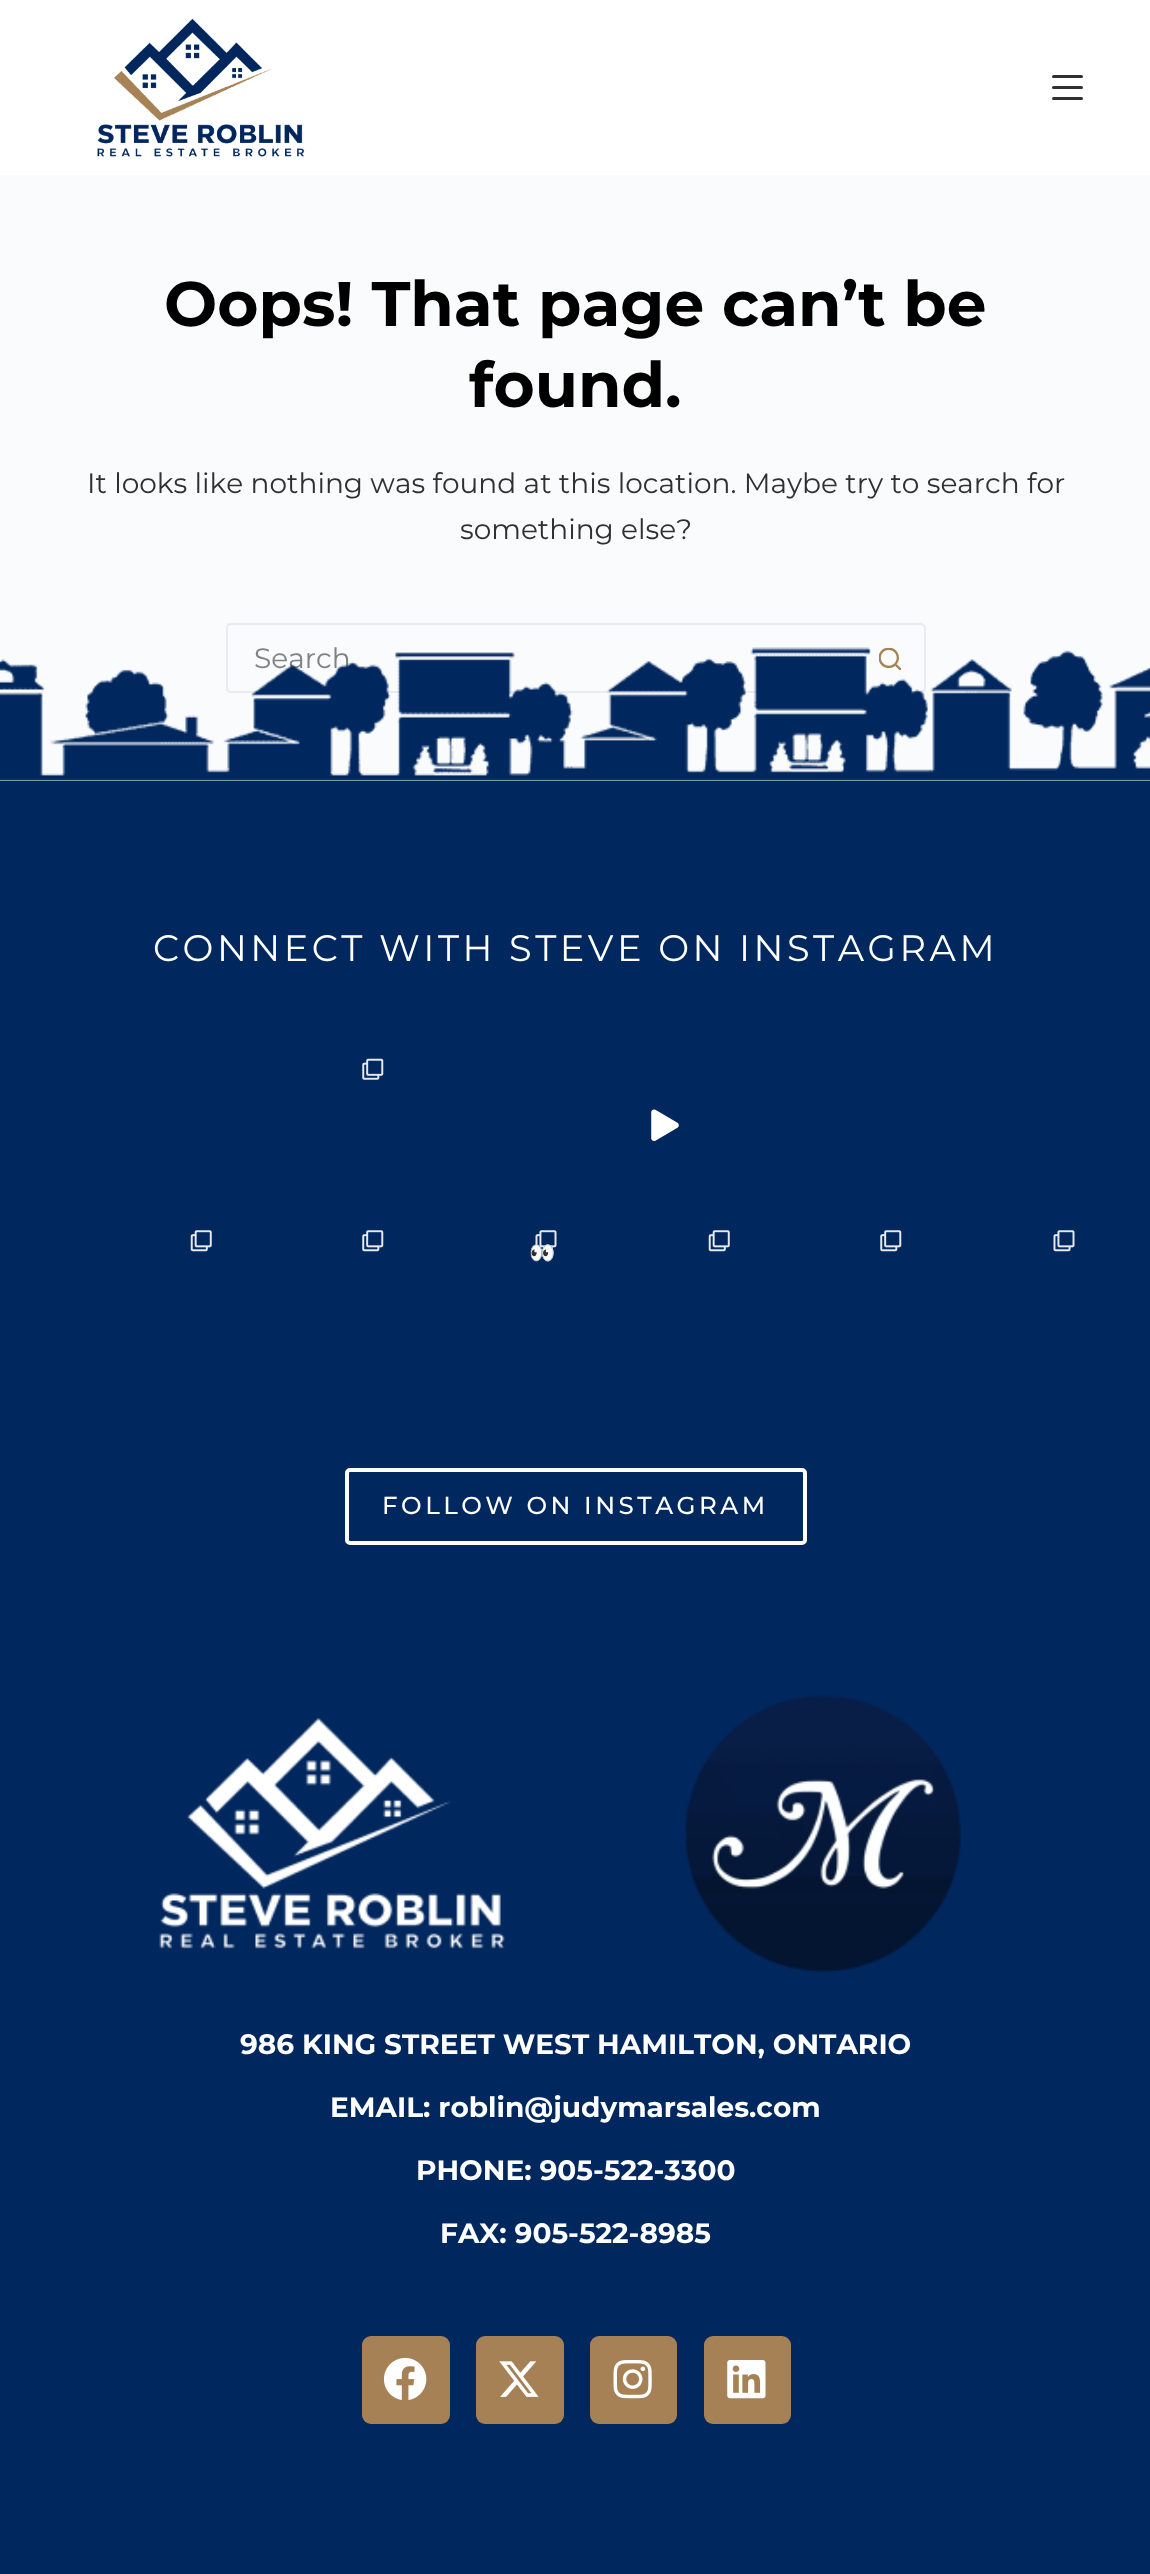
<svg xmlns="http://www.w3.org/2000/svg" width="1150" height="2574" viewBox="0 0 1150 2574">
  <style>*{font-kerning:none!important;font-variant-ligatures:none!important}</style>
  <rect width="100%" height="100%" fill="rgb(250,251,252)"/>
  <rect x="0" y="0" width="1150" height="175" fill="rgb(255,255,255)"/>
  <image x="97" y="18" width="208" height="139" href="pic1.png"/>
  <rect x="1052" y="75" width="31" height="3" rx="1.5" fill="rgb(48,48,48)"/>
  <rect x="1052" y="86" width="31" height="3" rx="1.5" fill="rgb(48,48,48)"/>
  <rect x="1052" y="97" width="31" height="3" rx="1.5" fill="rgb(48,48,48)"/>
  <g font-family="Montserrat" font-size="63" font-weight="bold" fill="rgb(0,0,0)">
    <text x="164" y="326">Oops! That page can’t be</text>
    <text x="469" y="407">found.</text>
  </g>
  <g font-family="Montserrat" font-size="28" fill="rgb(48,48,48)">
    <text x="87" y="493">It looks like nothing was found at this location. Maybe try to search for</text>
    <text x="460" y="539">something else?</text>
  </g>
  <path d="M231 623H856V693H231C228 693 226 691 226 688V628C226 625 228 623 231 623ZM231 625H856V691H231C229 691 228 690 228 688V628C228 626 229 625 231 625Z" fill="rgb(232,236,240)" fill-rule="evenodd"/>
  <text x="254" y="668" font-family="Montserrat" font-size="28" fill="rgb(129,129,130)">Search</text>
  <path d="M856 623H920C923 623 926 625 926 628V688C926 691 923 693 920 693H856ZM856 625H920C922 625 924 626 924 628V688C924 690 922 691 920 691H856Z" fill="rgb(232,236,240)" fill-rule="evenodd"/>
  <image x="879" y="648" width="22" height="22" href="pic2.png"/>
  <image x="0" y="647" width="1150" height="134" href="pic3.png"/>
  <rect x="0" y="781" width="1150" height="1793" fill="rgb(0,39,94)"/>
  <text x="153" y="961" font-family="Montserrat" font-size="36.75" letter-spacing="3.5" fill="rgb(255,255,255)">CONNECT WITH STEVE ON INSTAGRAM</text>
  <image x="362" y="1058" width="22" height="22" href="pic4.png"/>
  <image x="651" y="1109" width="28" height="32" href="pic5.png"/>
  <image x="190" y="1230" width="22" height="22" href="pic6.png"/>
  <image x="362" y="1230" width="22" height="22" href="pic7.png"/>
  <image x="535" y="1230" width="22" height="22" href="pic8.png"/>
  <text x="529" y="1260" font-family="Noto Color Emoji" font-size="21" fill="rgb(33,67,115)">👀</text>
  <image x="708" y="1230" width="22" height="22" href="pic6.png"/>
  <image x="880" y="1230" width="22" height="22" href="pic7.png"/>
  <image x="1053" y="1230" width="22" height="22" href="pic8.png"/>
  <rect x="347" y="1470" width="458" height="73" rx="3" fill="none" stroke="rgb(255,255,255)" stroke-width="4"/>
  <text x="382" y="1514" font-family="Montserrat" font-size="24.5" font-weight="500" letter-spacing="3.5" fill="rgb(255,255,255)">FOLLOW ON INSTAGRAM</text>
  <image x="159" y="1718" width="346" height="231" href="pic9.png"/>
  <image x="685" y="1695" width="276" height="278" href="pic10.png"/>
  <g font-family="Montserrat" font-size="28" font-weight="bold" fill="rgb(255,255,255)">
    <text x="240" y="2054">986 KING STREET WEST HAMILTON, ONTARIO</text>
    <text x="330" y="2117">EMAIL: roblin@judymarsales.com</text>
    <text x="416" y="2180">PHONE: 905-522-3300</text>
    <text x="440" y="2243">FAX: 905-522-8985</text>
  </g>
  <rect x="362" y="2336" width="88" height="88" rx="9" fill="rgb(166,129,85)"/>
  <image x="383" y="2357" width="44" height="43" href="pic11.png"/>
  <rect x="476" y="2336" width="88" height="88" rx="9" fill="rgb(166,129,85)"/>
  <image x="499" y="2361" width="40" height="36" href="pic12.png"/>
  <rect x="590" y="2336" width="87" height="88" rx="9" fill="rgb(166,129,85)"/>
  <image x="613" y="2360" width="39" height="39" href="pic13.png"/>
  <rect x="704" y="2336" width="87" height="88" rx="9" fill="rgb(166,129,85)"/>
  <image x="727" y="2360" width="39" height="39" href="pic14.png"/>
</svg>
